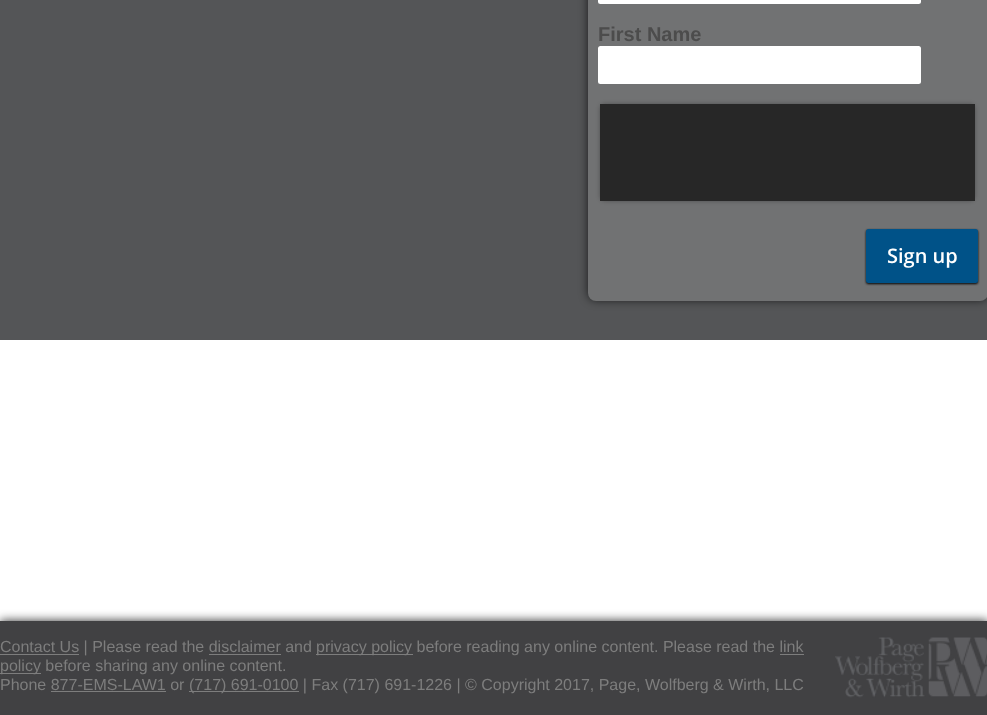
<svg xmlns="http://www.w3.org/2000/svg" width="987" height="715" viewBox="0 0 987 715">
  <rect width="100%" height="100%" fill="rgb(255,255,255)"/>
  <rect x="0" y="0" width="987" height="340" fill="rgb(84,85,87)"/>
  <rect x="588" y="-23" width="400" height="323" rx="8" fill="rgba(0,0,0,0.7)" filter="blur(5px)"/>
  <rect x="588" y="-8" width="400" height="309" rx="8" fill="rgb(113,114,115)"/>
  <rect x="598" y="-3" width="323" height="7" rx="2.5" fill="rgb(255,255,255)"/>
  <text x="598" y="41" font-family="Liberation Sans" font-size="20" font-weight="bold" fill="rgb(76,76,76)">First Name</text>
  <rect x="598" y="46" width="323" height="38" rx="2.5" fill="rgb(255,255,255)"/>
  <rect x="600" y="104" width="375" height="97" rx="5" fill="rgba(0,0,0,0.3)" filter="blur(2px)"/>
  <rect x="600" y="104" width="375" height="97" fill="rgb(39,39,39)"/>
  <rect x="866" y="230" width="112" height="54" rx="2.5" fill="rgb(0,0,1)" filter="blur(1px)"/>
  <rect x="866" y="229" width="112" height="54" rx="2.5" fill="rgb(0,82,136)"/>
  <text x="887" y="263" font-family="Open Sans" font-size="20" font-weight="600" fill="rgb(255,255,255)">Sign up</text>
  <rect x="0" y="620" width="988" height="94" fill="rgba(0,0,0,0.7)" filter="blur(5px)"/>
  <rect x="0" y="621" width="987" height="94" fill="rgb(65,65,67)"/>
  <rect x="0" y="654" width="79" height="1" fill="rgb(125,125,125)"/>
  <text x="0" y="652" font-family="Liberation Sans" font-size="16" fill="rgb(125,125,125)">Contact Us | Please read the disclaimer and</text>
  <rect x="316" y="654" width="97" height="1" fill="rgb(125,125,125)"/>
  <text x="316" y="652" font-family="Liberation Sans" font-size="16" fill="rgb(125,125,125)">privacy policy before reading any online content. Please read the link</text>
  <rect x="209" y="654" width="72" height="1" fill="rgb(125,125,125)"/>
  <rect x="0" y="673" width="41" height="1" fill="rgb(125,125,125)"/>
  <text x="0" y="671" font-family="Liberation Sans" font-size="16" fill="rgb(125,125,125)">policy before sharing any online content.</text>
  <rect x="780" y="654" width="24" height="1" fill="rgb(125,125,125)"/>
  <text x="0" y="690" font-family="Liberation Sans" font-size="16" fill="rgb(125,125,125)">Phone 877-EMS-LAW1 or</text>
  <rect x="189" y="691" width="110" height="1" fill="rgb(125,125,125)"/>
  <text x="189" y="690" font-family="Liberation Sans" font-size="16" fill="rgb(125,125,125)">(717) 691-0100 | Fax (717) 691-1226 | © Copyright 2017, Page, Wolfberg &amp; Wirth, LLC</text>
  <rect x="51" y="691" width="115" height="1" fill="rgb(125,125,125)"/>
  <image x="835" y="637" width="152" height="61" href="pic1.png"/>
</svg>
